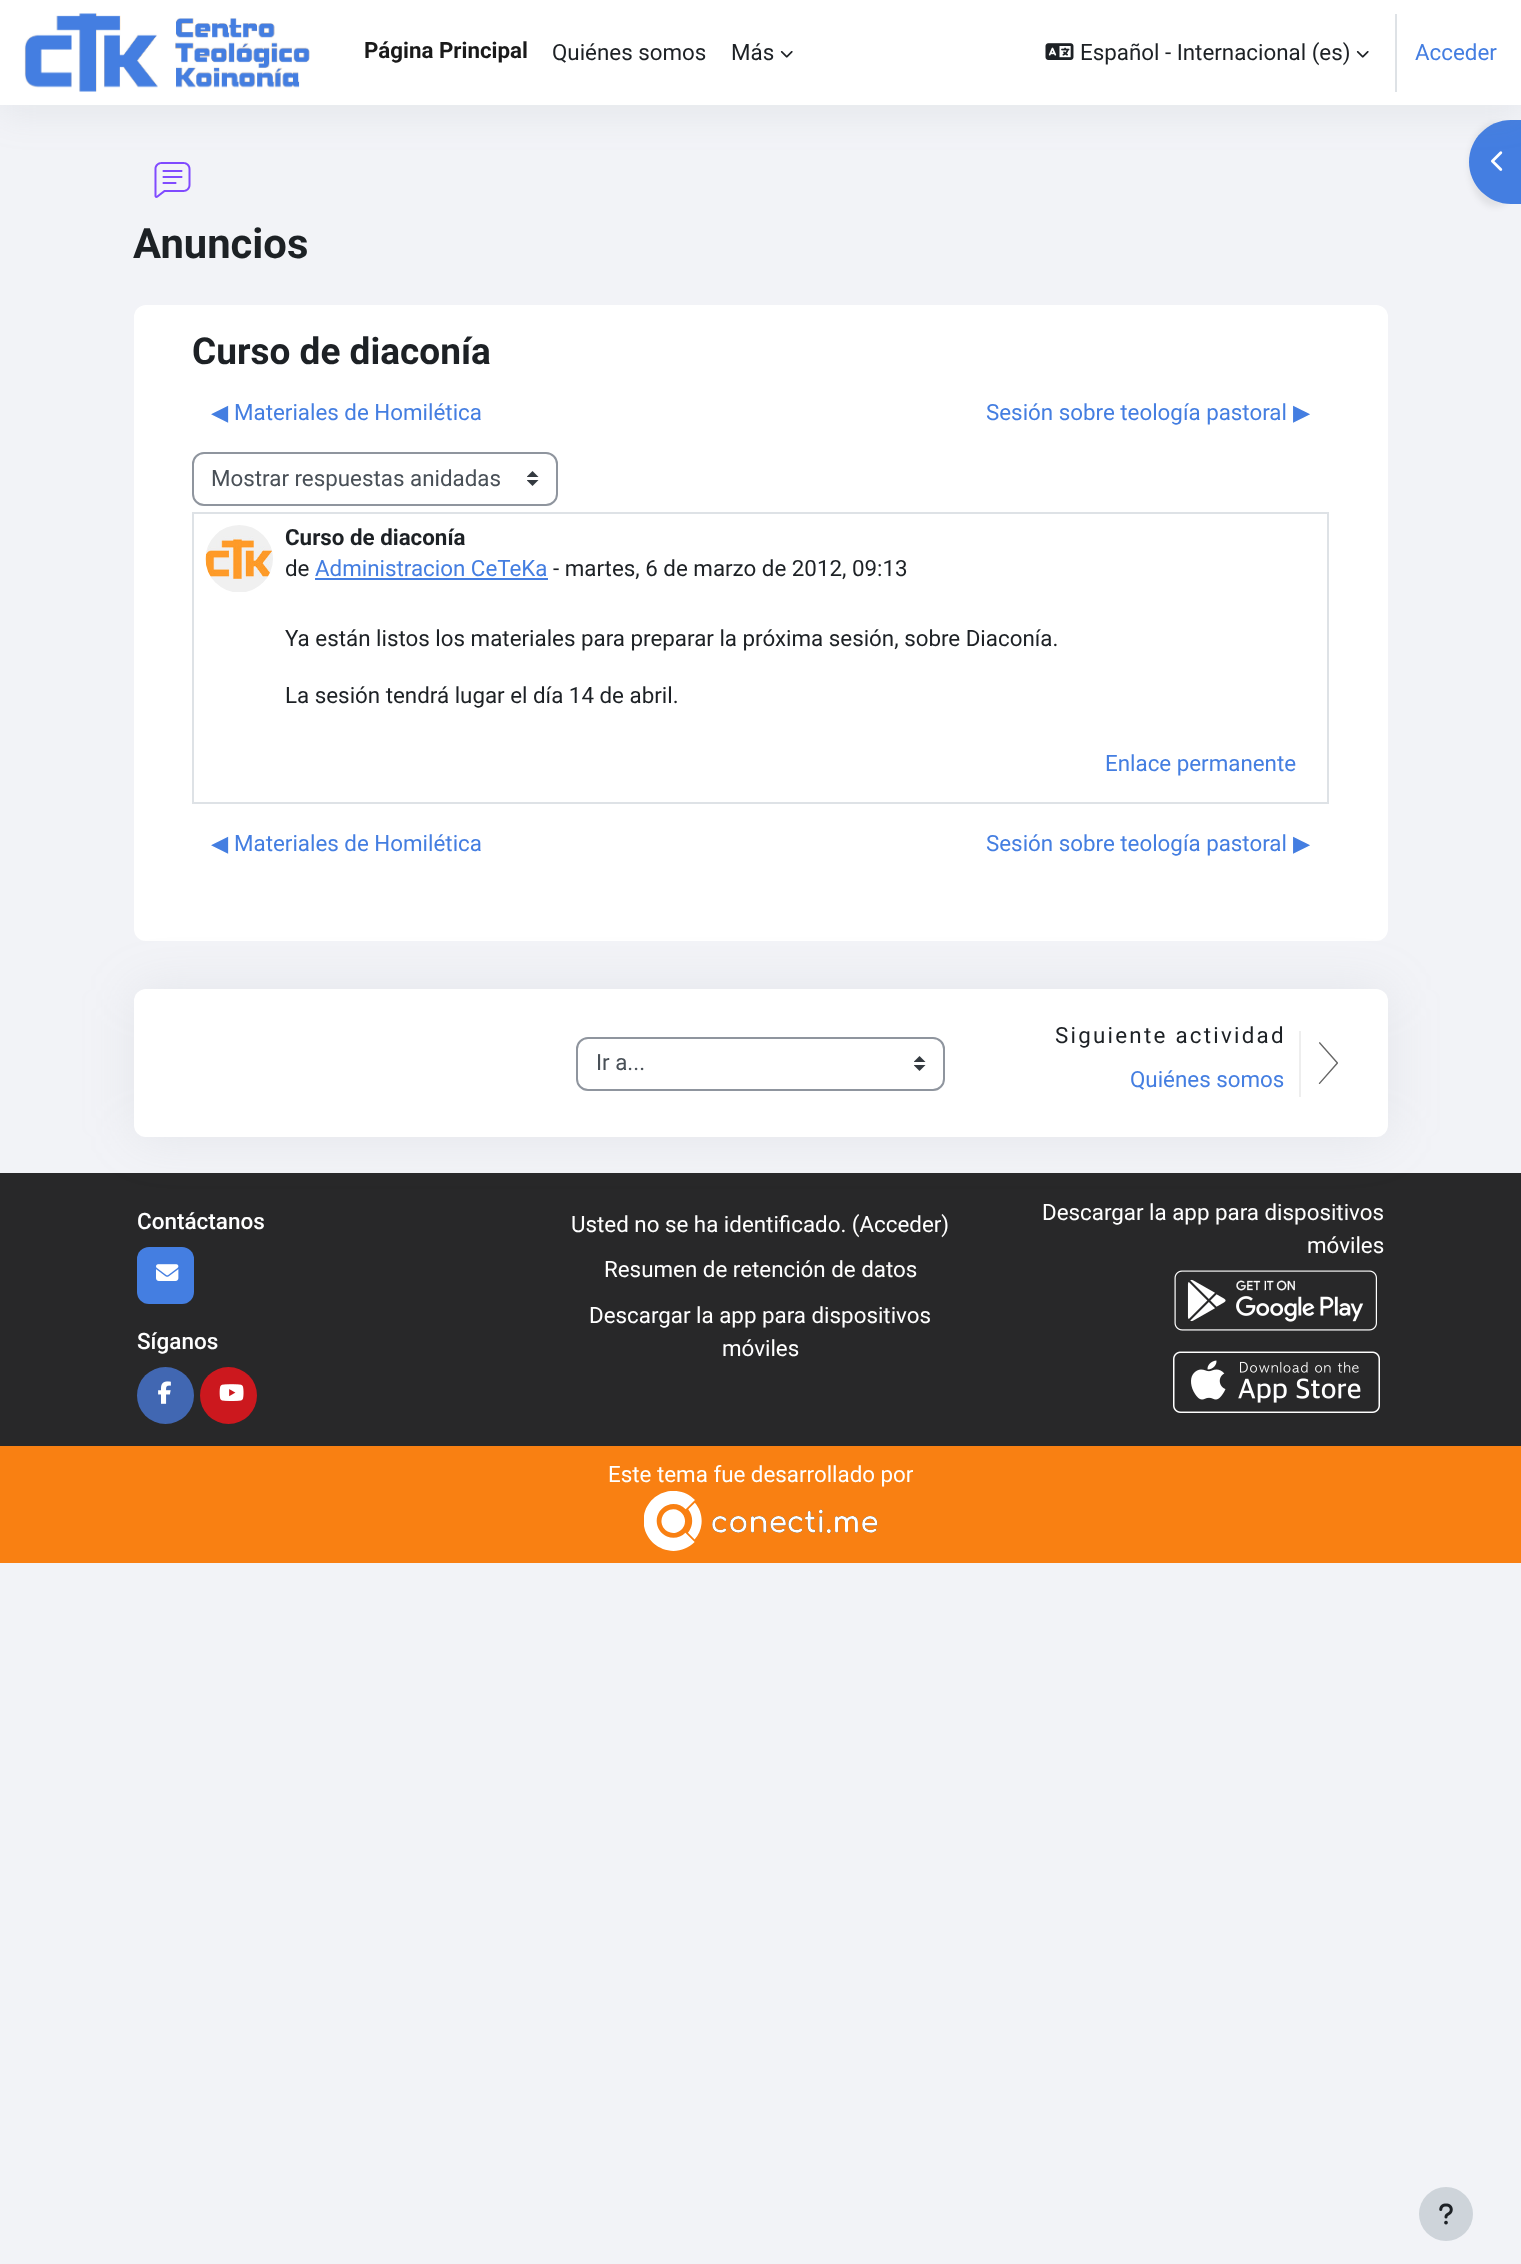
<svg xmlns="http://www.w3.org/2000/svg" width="1521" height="2264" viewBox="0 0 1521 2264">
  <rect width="100%" height="100%" fill="rgb(242,243,247)"/>
  <image x="154" y="162" width="37" height="36" href="pic4.png"/>
  <rect x="1469" y="123" width="52" height="84" rx="42" fill="rgba(0,0,0,0.07)" filter="blur(3px)"/>
  <path d="M1511 120H1521V204H1511C1488 204 1469 185 1469 162C1469 139 1488 120 1511 120Z" fill="rgb(68,126,225)"/>
  <image x="1491" y="151" width="12" height="20" href="pic5.png"/>
  <rect x="0" y="9" width="1521" height="105" fill="rgba(140,152,164,0.13)" filter="blur(18px)"/>
  <rect x="0" y="0" width="1521" height="105" fill="rgb(255,255,255)"/>
  <image x="24" y="13" width="286" height="79" href="pic1.png"/>
  <text x="364" y="58" font-family="Roboto" font-size="22.35" font-weight="bold" fill="rgb(26,26,26)">Página Principal</text>
  <g font-family="Roboto" font-size="22.35" fill="rgb(29,33,37)">
    <text x="552" y="60">Quiénes somos</text>
    <text x="731" y="60">Más</text>
  </g>
  <image x="780" y="51" width="13" height="7" href="pic2.png"/>
  <image x="1045" y="43" width="29" height="17" href="pic3.png"/>
  <text x="1080" y="60" font-family="Roboto" font-size="22.35" fill="rgb(29,33,37)">Español - Internacional (es)</text>
  <image x="1356" y="51" width="13" height="7" href="pic2.png"/>
  <rect x="1395" y="14" width="2" height="78" fill="rgb(222,226,230)"/>
  <text x="1415" y="60" font-family="Roboto" font-size="22.35" fill="rgb(68,126,225)">Acceder</text>
  <text x="133" y="258" font-family="Roboto" font-size="41.75" font-weight="bold" fill="rgb(29,33,37)">Anuncios</text>
  <rect x="134" y="305" width="1254" height="636" rx="12" fill="rgb(255,255,255)"/>
  <text x="192" y="364" font-family="Roboto" font-size="37" font-weight="bold" fill="rgb(29,33,37)">Curso de diaconía</text>
  <text x="211" y="420" font-family="DejaVu Sans" font-size="22.35" fill="rgb(68,126,225)">◀︎</text>
  <g font-family="Roboto" font-size="22.35" fill="rgb(68,126,225)">
    <text x="234" y="420">Materiales de Homilética</text>
    <text x="986" y="420">Sesión sobre teología pastoral</text>
  </g>
  <text x="1293" y="420" font-family="DejaVu Sans" font-size="22.35" fill="rgb(68,126,225)">▶︎</text>
  <image x="527" y="471" width="12" height="15" href="pic6.png"/>
  <rect x="193" y="453" width="364" height="52" rx="11" fill="none" stroke="rgb(143,149,158)" stroke-width="2"/>
  <text x="211" y="486" font-family="Roboto" font-size="22.35" fill="rgb(73,80,87)">Mostrar respuestas anidadas</text>
  <rect x="193" y="513" width="1135" height="290" fill="none" stroke="rgb(222,226,230)" stroke-width="2"/>
  <image x="205" y="525" width="68" height="67" href="pic7.png"/>
  <text x="285" y="545" font-family="Roboto" font-size="22.35" font-weight="bold" fill="rgb(29,33,37)">Curso de diaconía</text>
  <text x="285" y="576" font-family="Roboto" font-size="22.35" fill="rgb(29,33,37)">de</text>
  <text x="315" y="576" font-family="Roboto" font-size="22.35" fill="rgb(68,126,225)">Administracion CeTeKa</text>
  <rect x="315" y="578" width="233" height="2" fill="rgb(68,126,225)"/>
  <g font-family="Roboto" font-size="22.35" fill="rgb(29,33,37)">
    <text x="553" y="576">- martes, 6 de marzo de 2012, 09:13</text>
    <text x="285" y="646">Ya están listos los materiales para preparar la próxima sesión, sobre Diaconía.</text>
    <text x="285" y="703">La sesión tendrá lugar el día 14 de abril.</text>
  </g>
  <text x="1105" y="771" font-family="Roboto" font-size="22.35" fill="rgb(68,126,225)">Enlace permanente</text>
  <text x="211" y="851" font-family="DejaVu Sans" font-size="22.35" fill="rgb(68,126,225)">◀︎</text>
  <g font-family="Roboto" font-size="22.35" fill="rgb(68,126,225)">
    <text x="234" y="851">Materiales de Homilética</text>
    <text x="986" y="851">Sesión sobre teología pastoral</text>
  </g>
  <text x="1293" y="851" font-family="DejaVu Sans" font-size="22.35" fill="rgb(68,126,225)">▶︎</text>
  <rect x="0" y="1173" width="1521" height="273" fill="rgb(40,40,41)"/>
  <rect x="134" y="989" width="1254" height="148" rx="12" fill="rgba(154,161,171,0.15)" filter="blur(26px)"/>
  <rect x="134" y="989" width="1254" height="148" rx="12" fill="rgb(255,255,255)"/>
  <image x="914" y="1056" width="12" height="15" href="pic6.png"/>
  <rect x="577" y="1038" width="367" height="52" rx="11" fill="none" stroke="rgb(143,149,158)" stroke-width="2"/>
  <text x="596" y="1070" font-family="Roboto" font-size="22.35" fill="rgb(73,80,87)">Ir a...</text>
  <text x="1055" y="1043" font-family="Roboto" font-size="22.35" letter-spacing="2.25" fill="rgb(29,33,37)">Siguiente actividad</text>
  <text x="1130" y="1087" font-family="Roboto" font-size="22.35" fill="rgb(68,126,225)">Quiénes somos</text>
  <rect x="1299" y="1031" width="2" height="66" fill="rgb(238,238,238)"/>
  <image x="1318" y="1042" width="20" height="42" href="pic8.png"/>
  <text x="137" y="1229" font-family="Roboto" font-size="22.5" font-weight="500" fill="rgb(255,255,255)">Contáctanos</text>
  <rect x="137" y="1247" width="57" height="57" rx="12" fill="rgb(68,126,225)"/>
  <image x="156" y="1264" width="23" height="17" href="pic9.png"/>
  <text x="137" y="1349" font-family="Roboto" font-size="22.5" font-weight="500" fill="rgb(255,255,255)">Síganos</text>
  <circle cx="165.5" cy="1395.5" r="28.5" fill="rgb(65,103,178)"/>
  <image x="158" y="1381" width="13" height="23" href="pic10.png"/>
  <circle cx="228.5" cy="1395.5" r="28.5" fill="rgb(204,24,30)"/>
  <image x="219" y="1384" width="25" height="17" href="pic11.png"/>
  <g font-family="Roboto" font-size="22.35" fill="rgb(255,255,255)">
    <text x="571" y="1232">Usted no se ha identificado. (Acceder)</text>
    <text x="604" y="1277">Resumen de retención de datos</text>
    <text x="589" y="1323">Descargar la app para dispositivos</text>
    <text x="722" y="1356">móviles</text>
    <text x="1042" y="1220">Descargar la app para dispositivos</text>
    <text x="1307" y="1253">móviles</text>
  </g>
  <image x="1174" y="1270" width="203" height="61" href="pic12.png"/>
  <image x="1173" y="1351" width="207" height="62" href="pic13.png"/>
  <rect x="0" y="1446" width="1521" height="117" fill="rgb(249,128,18)"/>
  <text x="608" y="1482" font-family="Roboto" font-size="22.35" fill="rgb(255,255,255)">Este tema fue desarrollado por</text>
  <image x="644" y="1491" width="234" height="60" href="pic14.png"/>
  <circle cx="1446" cy="2214" r="27" fill="rgb(206,212,218)"/>
  <image x="1439" y="2203" width="14" height="22" href="pic15.png"/>
</svg>
